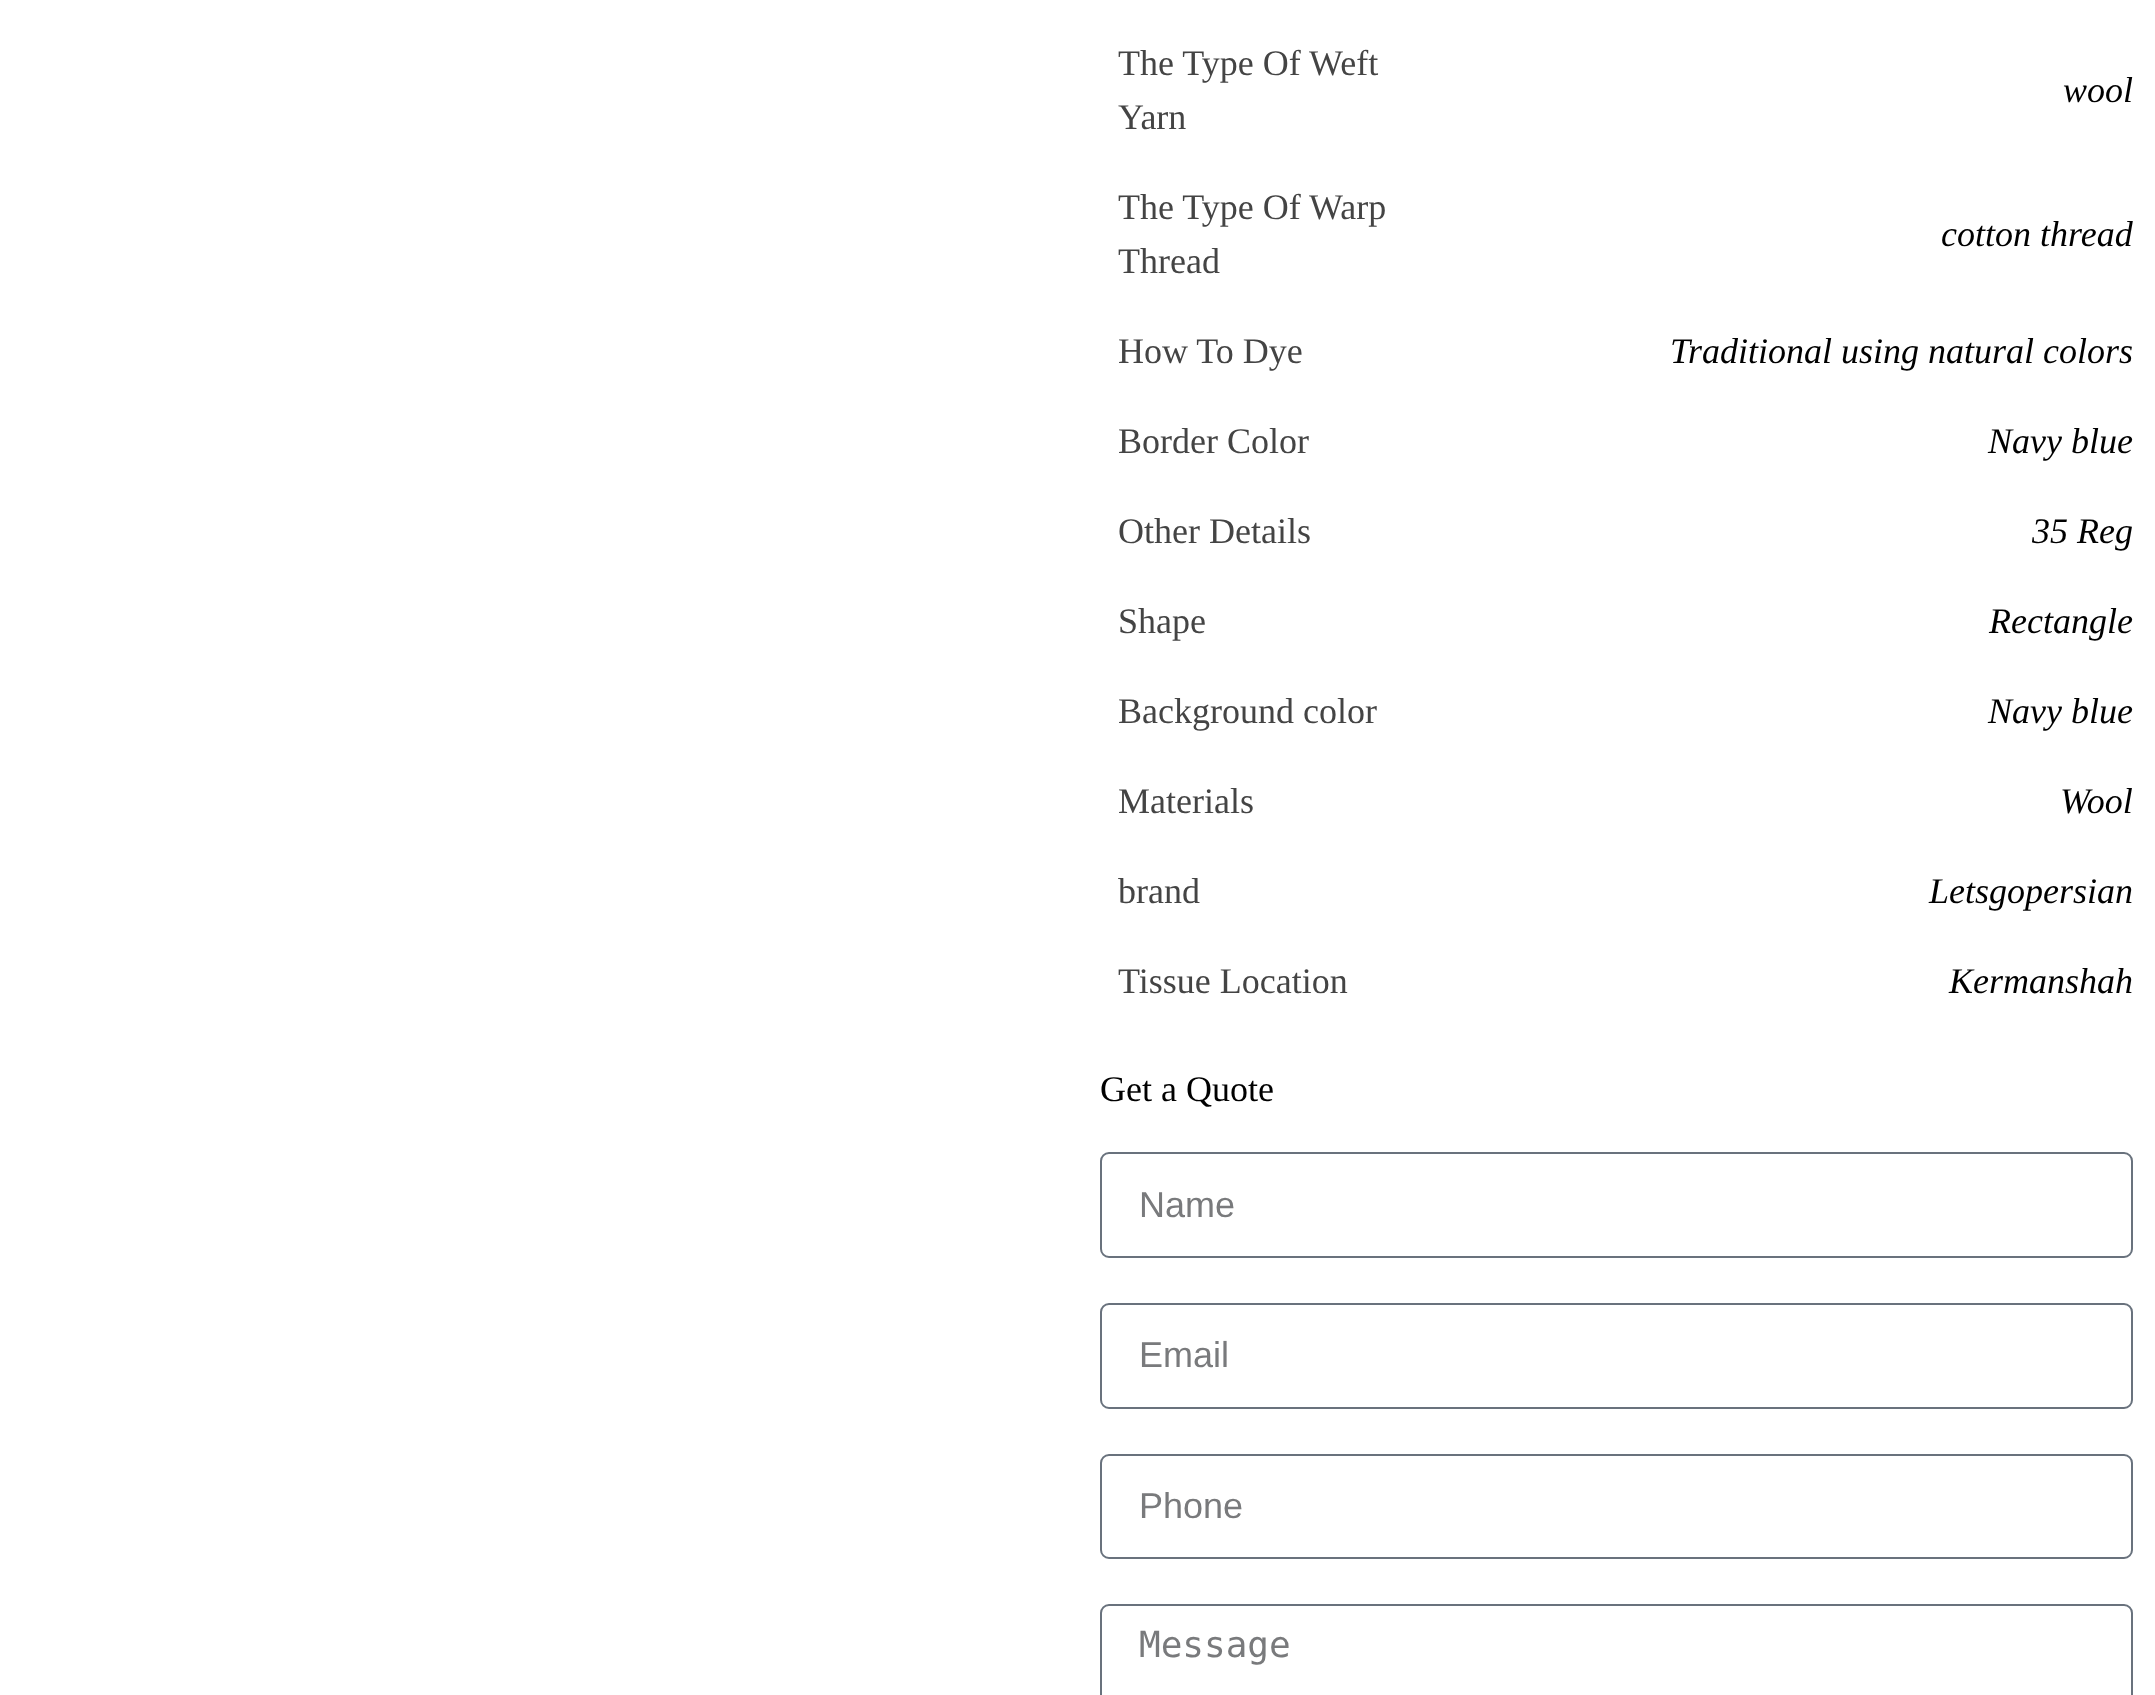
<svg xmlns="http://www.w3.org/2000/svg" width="2155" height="1695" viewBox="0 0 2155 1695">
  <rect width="100%" height="100%" fill="rgb(255,255,255)"/>
  <g font-family="Liberation Serif" font-size="36" fill="rgb(68,68,68)">
    <text>
      <tspan x="1118" y="75">The Type Of Weft</tspan>
      <tspan x="1118" y="129">Yarn</tspan>
    </text>
  </g>
  <text x="2063" y="102" font-family="Liberation Serif" font-size="36" font-style="italic" fill="rgb(0,0,0)">wool</text>
  <g font-family="Liberation Serif" font-size="36" fill="rgb(68,68,68)">
    <text>
      <tspan x="1118" y="219">The Type Of Warp</tspan>
      <tspan x="1118" y="273">Thread</tspan>
    </text>
  </g>
  <text x="1941" y="246" font-family="Liberation Serif" font-size="36" font-style="italic" fill="rgb(0,0,0)">cotton thread</text>
  <text x="1118" y="363" font-family="Liberation Serif" font-size="36" fill="rgb(68,68,68)">How To Dye</text>
  <text x="1670" y="363" font-family="Liberation Serif" font-size="36" font-style="italic" fill="rgb(0,0,0)">Traditional using natural colors</text>
  <text x="1118" y="453" font-family="Liberation Serif" font-size="36" fill="rgb(68,68,68)">Border Color</text>
  <text x="1988" y="453" font-family="Liberation Serif" font-size="36" font-style="italic" fill="rgb(0,0,0)">Navy blue</text>
  <text x="1118" y="543" font-family="Liberation Serif" font-size="36" fill="rgb(68,68,68)">Other Details</text>
  <text x="2032" y="543" font-family="Liberation Serif" font-size="36" font-style="italic" fill="rgb(0,0,0)">35 Reg</text>
  <text x="1118" y="633" font-family="Liberation Serif" font-size="36" fill="rgb(68,68,68)">Shape</text>
  <text x="1989" y="633" font-family="Liberation Serif" font-size="36" font-style="italic" fill="rgb(0,0,0)">Rectangle</text>
  <text x="1118" y="723" font-family="Liberation Serif" font-size="36" fill="rgb(68,68,68)">Background color</text>
  <text x="1988" y="723" font-family="Liberation Serif" font-size="36" font-style="italic" fill="rgb(0,0,0)">Navy blue</text>
  <text x="1118" y="813" font-family="Liberation Serif" font-size="36" fill="rgb(68,68,68)">Materials</text>
  <text x="2060" y="813" font-family="Liberation Serif" font-size="36" font-style="italic" fill="rgb(0,0,0)">Wool</text>
  <text x="1118" y="903" font-family="Liberation Serif" font-size="36" fill="rgb(68,68,68)">brand</text>
  <text x="1929" y="903" font-family="Liberation Serif" font-size="36" font-style="italic" fill="rgb(0,0,0)">Letsgopersian</text>
  <text x="1118" y="993" font-family="Liberation Serif" font-size="36" fill="rgb(68,68,68)">Tissue Location</text>
  <text x="1949" y="993" font-family="Liberation Serif" font-size="36" font-style="italic" fill="rgb(0,0,0)">Kermanshah</text>
  <text x="1100" y="1101" font-family="Liberation Serif" font-size="36" fill="rgb(0,0,0)">Get a Quote</text>
  <rect x="1101" y="1153" width="1031" height="104" rx="8" fill="none" stroke="rgb(105,114,125)" stroke-width="2"/>
  <text x="1139" y="1217" font-family="Liberation Sans" font-size="36" fill="rgb(121,122,124)">Name</text>
  <rect x="1101" y="1304" width="1031" height="104" rx="8" fill="none" stroke="rgb(105,114,125)" stroke-width="2"/>
  <text x="1139" y="1367" font-family="Liberation Sans" font-size="36" fill="rgb(121,122,124)">Email</text>
  <rect x="1101" y="1455" width="1031" height="103" rx="8" fill="none" stroke="rgb(105,114,125)" stroke-width="2"/>
  <text x="1139" y="1518" font-family="Liberation Sans" font-size="36" fill="rgb(121,122,124)">Phone</text>
  <rect x="1101" y="1605" width="1031" height="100" rx="8" fill="none" stroke="rgb(105,114,125)" stroke-width="2"/>
  <text x="1139" y="1657" font-family="DejaVu Sans Mono" font-size="36" fill="rgb(121,122,124)">Message</text>
</svg>
